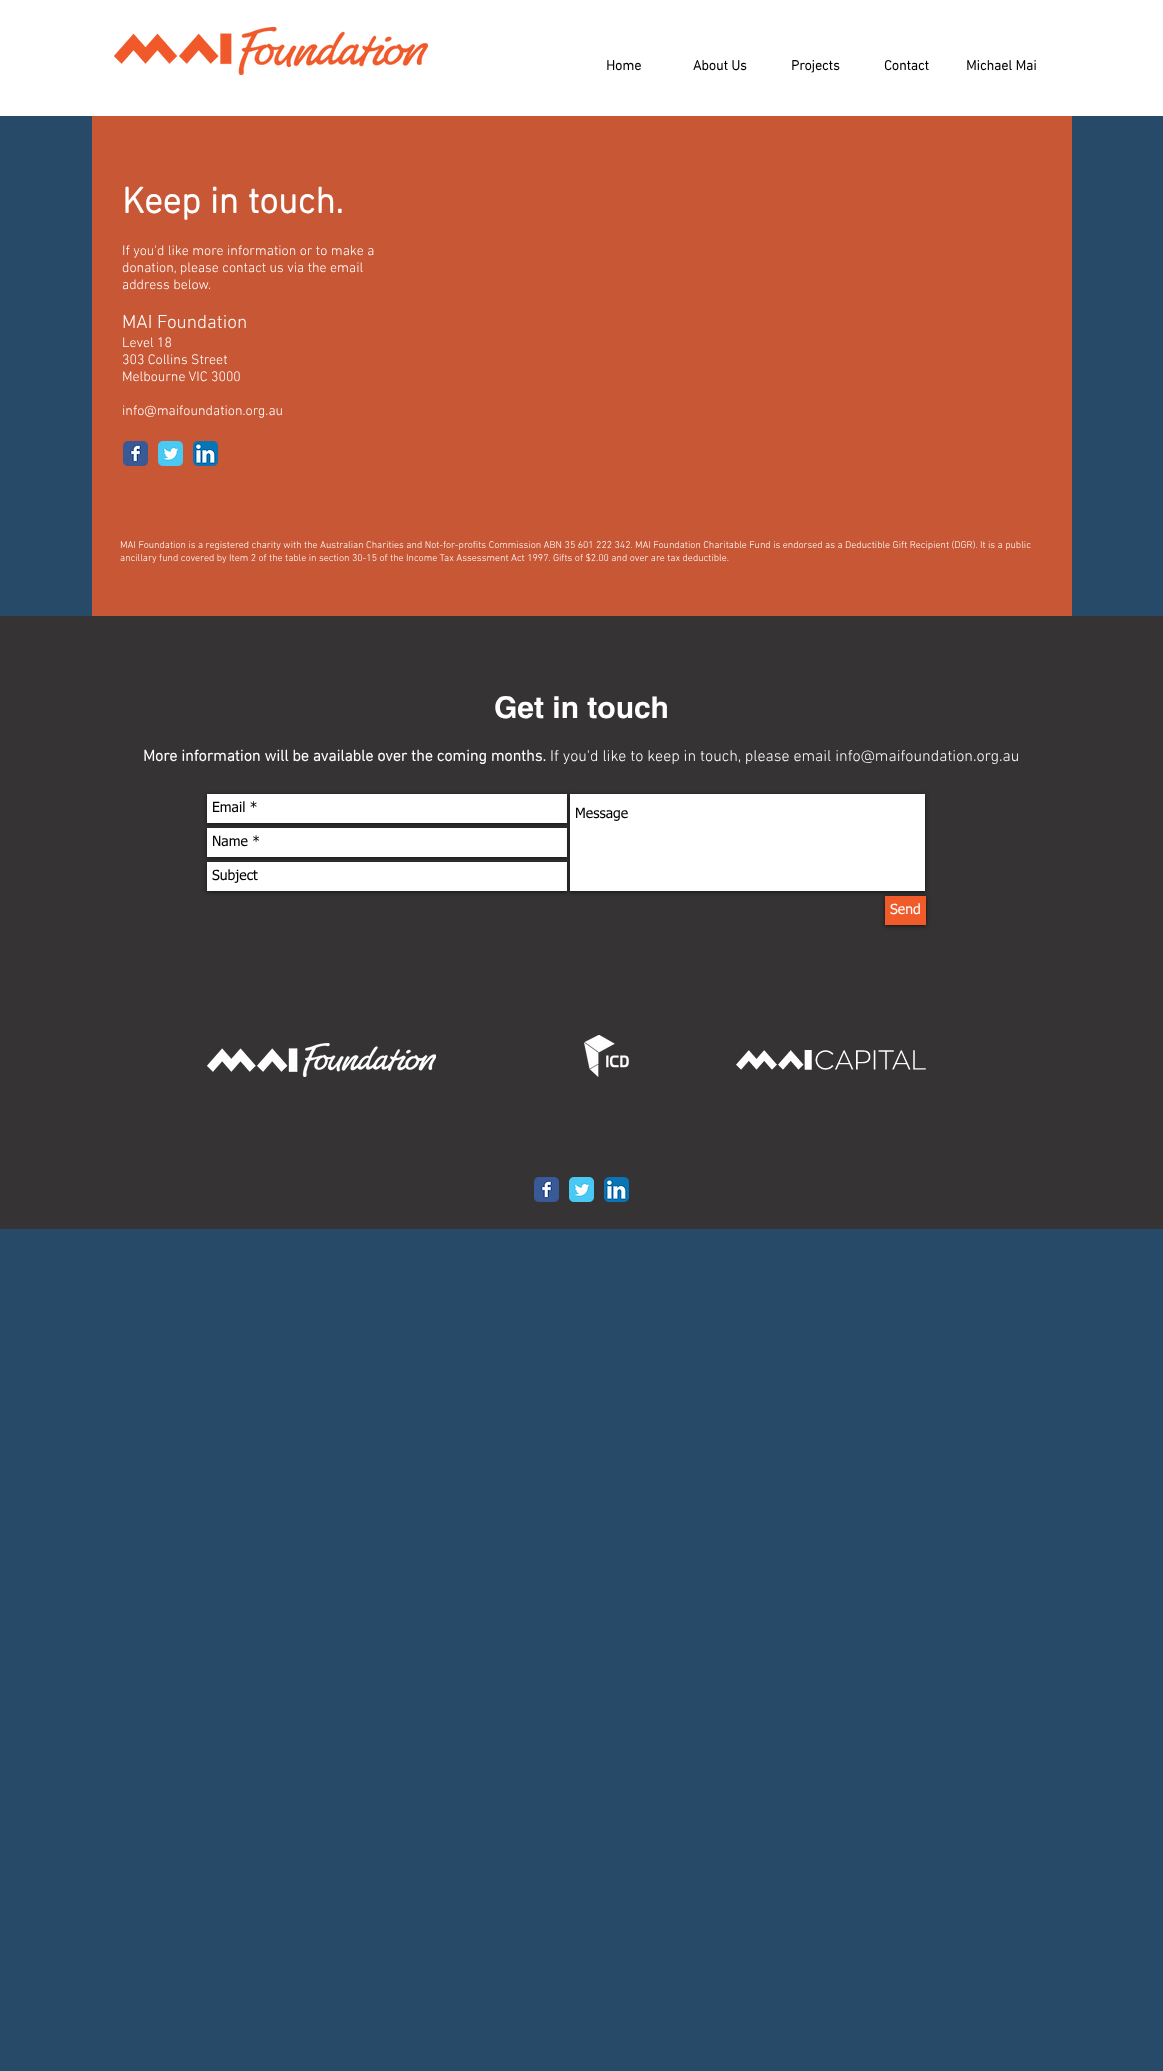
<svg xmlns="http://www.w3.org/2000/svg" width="1163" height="2071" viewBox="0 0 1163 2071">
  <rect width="100%" height="100%" fill="rgb(38,74,104)"/>
  <rect x="0" y="0" width="1163" height="116" fill="rgb(255,255,255)"/>
  <image x="114" y="27" width="314" height="48" href="pic1.png"/>
  <g font-family="'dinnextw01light'" font-size="14" font-weight="bold" fill="rgb(0,0,0)">
    <text x="606" y="70">Home</text>
    <text x="693" y="70">About Us</text>
    <text x="791" y="70">Projects</text>
    <text x="884" y="70">Contact</text>
    <text x="966" y="70">Michael Mai</text>
  </g>
  <rect x="92" y="116" width="980" height="500" fill="rgb(200,87,54)"/>
  <text x="122" y="213" font-family="'dinnextw01light'" font-size="37" font-weight="bold" fill="rgb(255,255,255)">Keep in touch.</text>
  <g font-family="'dinnextw01light'" font-size="14" font-weight="300" fill="rgb(255,255,255)">
    <text>
      <tspan x="122" y="255">If you'd like more information or to make a</tspan>
      <tspan x="122" y="272">donation, please contact us via the email</tspan>
      <tspan x="122" y="289">address below.</tspan>
    </text>
  </g>
  <text x="122" y="328" font-family="'dinnextw01light'" font-size="19" font-weight="300" fill="rgb(255,255,255)">MAI Foundation</text>
  <g font-family="'dinnextw01light'" font-size="14" font-weight="300" fill="rgb(255,255,255)">
    <text>
      <tspan x="122" y="347">Level 18</tspan>
      <tspan x="122" y="364">303 Collins Street</tspan>
      <tspan x="122" y="381">Melbourne VIC 3000</tspan>
    </text>
    <text x="122" y="415">info@maifoundation.org.au</text>
  </g>
  <image x="123" y="441" width="25" height="25" href="pic2.png"/>
  <image x="158" y="441" width="25" height="25" href="pic3.png"/>
  <image x="193" y="441" width="25" height="25" href="pic4.png"/>
  <g font-family="'dinnextw01light'" font-size="10" font-weight="300" fill="rgb(255,255,255)">
    <text>
      <tspan x="120" y="548">MAI Foundation is a registered charity with the Australian Charities and Not-for-profits Commission ABN 35 601 222 342. MAI Foundation Charitable Fund is endorsed as a Deductible Gift Recipient (DGR). It is a public</tspan>
      <tspan x="120" y="561">ancillary fund covered by Item 2 of the table in section 30-15 of the Income Tax Assessment Act 1997. Gifts of $2.00 and over are tax deductible.</tspan>
    </text>
  </g>
  <rect x="0" y="616" width="1163" height="613" fill="rgb(53,51,51)"/>
  <text x="494" y="718" font-family="helvetica" font-size="30" font-weight="bold" fill="rgb(255,255,255)">Get in touch</text>
  <text x="143" y="761" font-family="'dinnextw01light'" font-size="16" font-weight="bold" fill="rgb(255,255,255)">More information will be available over the coming months.</text>
  <text x="550" y="761" font-family="'dinnextw01light'" font-size="16" font-weight="300" fill="rgb(255,255,255)">If you'd like to keep in touch, please email info@maifoundation.org.au</text>
  <rect x="207" y="795" width="360" height="29" fill="rgba(0,0,0,0.6)" filter="blur(2px)"/>
  <rect x="207" y="794" width="360" height="29" fill="rgb(255,255,255)"/>
  <text x="212" y="812" font-family="tahoma" font-size="14" fill="rgb(0,0,0)">Email *</text>
  <rect x="207" y="829" width="360" height="29" fill="rgba(0,0,0,0.6)" filter="blur(2px)"/>
  <rect x="207" y="828" width="360" height="29" fill="rgb(255,255,255)"/>
  <rect x="207" y="863" width="360" height="29" fill="rgba(0,0,0,0.6)" filter="blur(2px)"/>
  <rect x="207" y="862" width="360" height="29" fill="rgb(255,255,255)"/>
  <rect x="570" y="795" width="355" height="97" fill="rgba(0,0,0,0.6)" filter="blur(2px)"/>
  <rect x="570" y="794" width="355" height="97" fill="rgb(255,255,255)"/>
  <g font-family="tahoma" font-size="14" fill="rgb(0,0,0)">
    <text x="575" y="818">Message</text>
    <text x="212" y="846">Name *</text>
    <text x="212" y="880">Subject</text>
  </g>
  <rect x="885" y="897" width="41" height="29" fill="rgba(0,0,0,0.6)" filter="blur(2px)"/>
  <rect x="885" y="896" width="41" height="29" fill="rgb(241,90,41)"/>
  <text x="890" y="914" font-family="tahoma" font-size="14" fill="rgb(255,255,255)">Send</text>
  <image x="207" y="1043" width="229" height="34" href="pic5.png"/>
  <image x="584" y="1035" width="45" height="42" href="pic6.png"/>
  <image x="736" y="1050" width="190" height="20" href="pic7.png"/>
  <image x="534" y="1177" width="25" height="25" href="pic8.png"/>
  <image x="569" y="1177" width="25" height="25" href="pic9.png"/>
  <image x="604" y="1177" width="25" height="25" href="pic10.png"/>
</svg>
